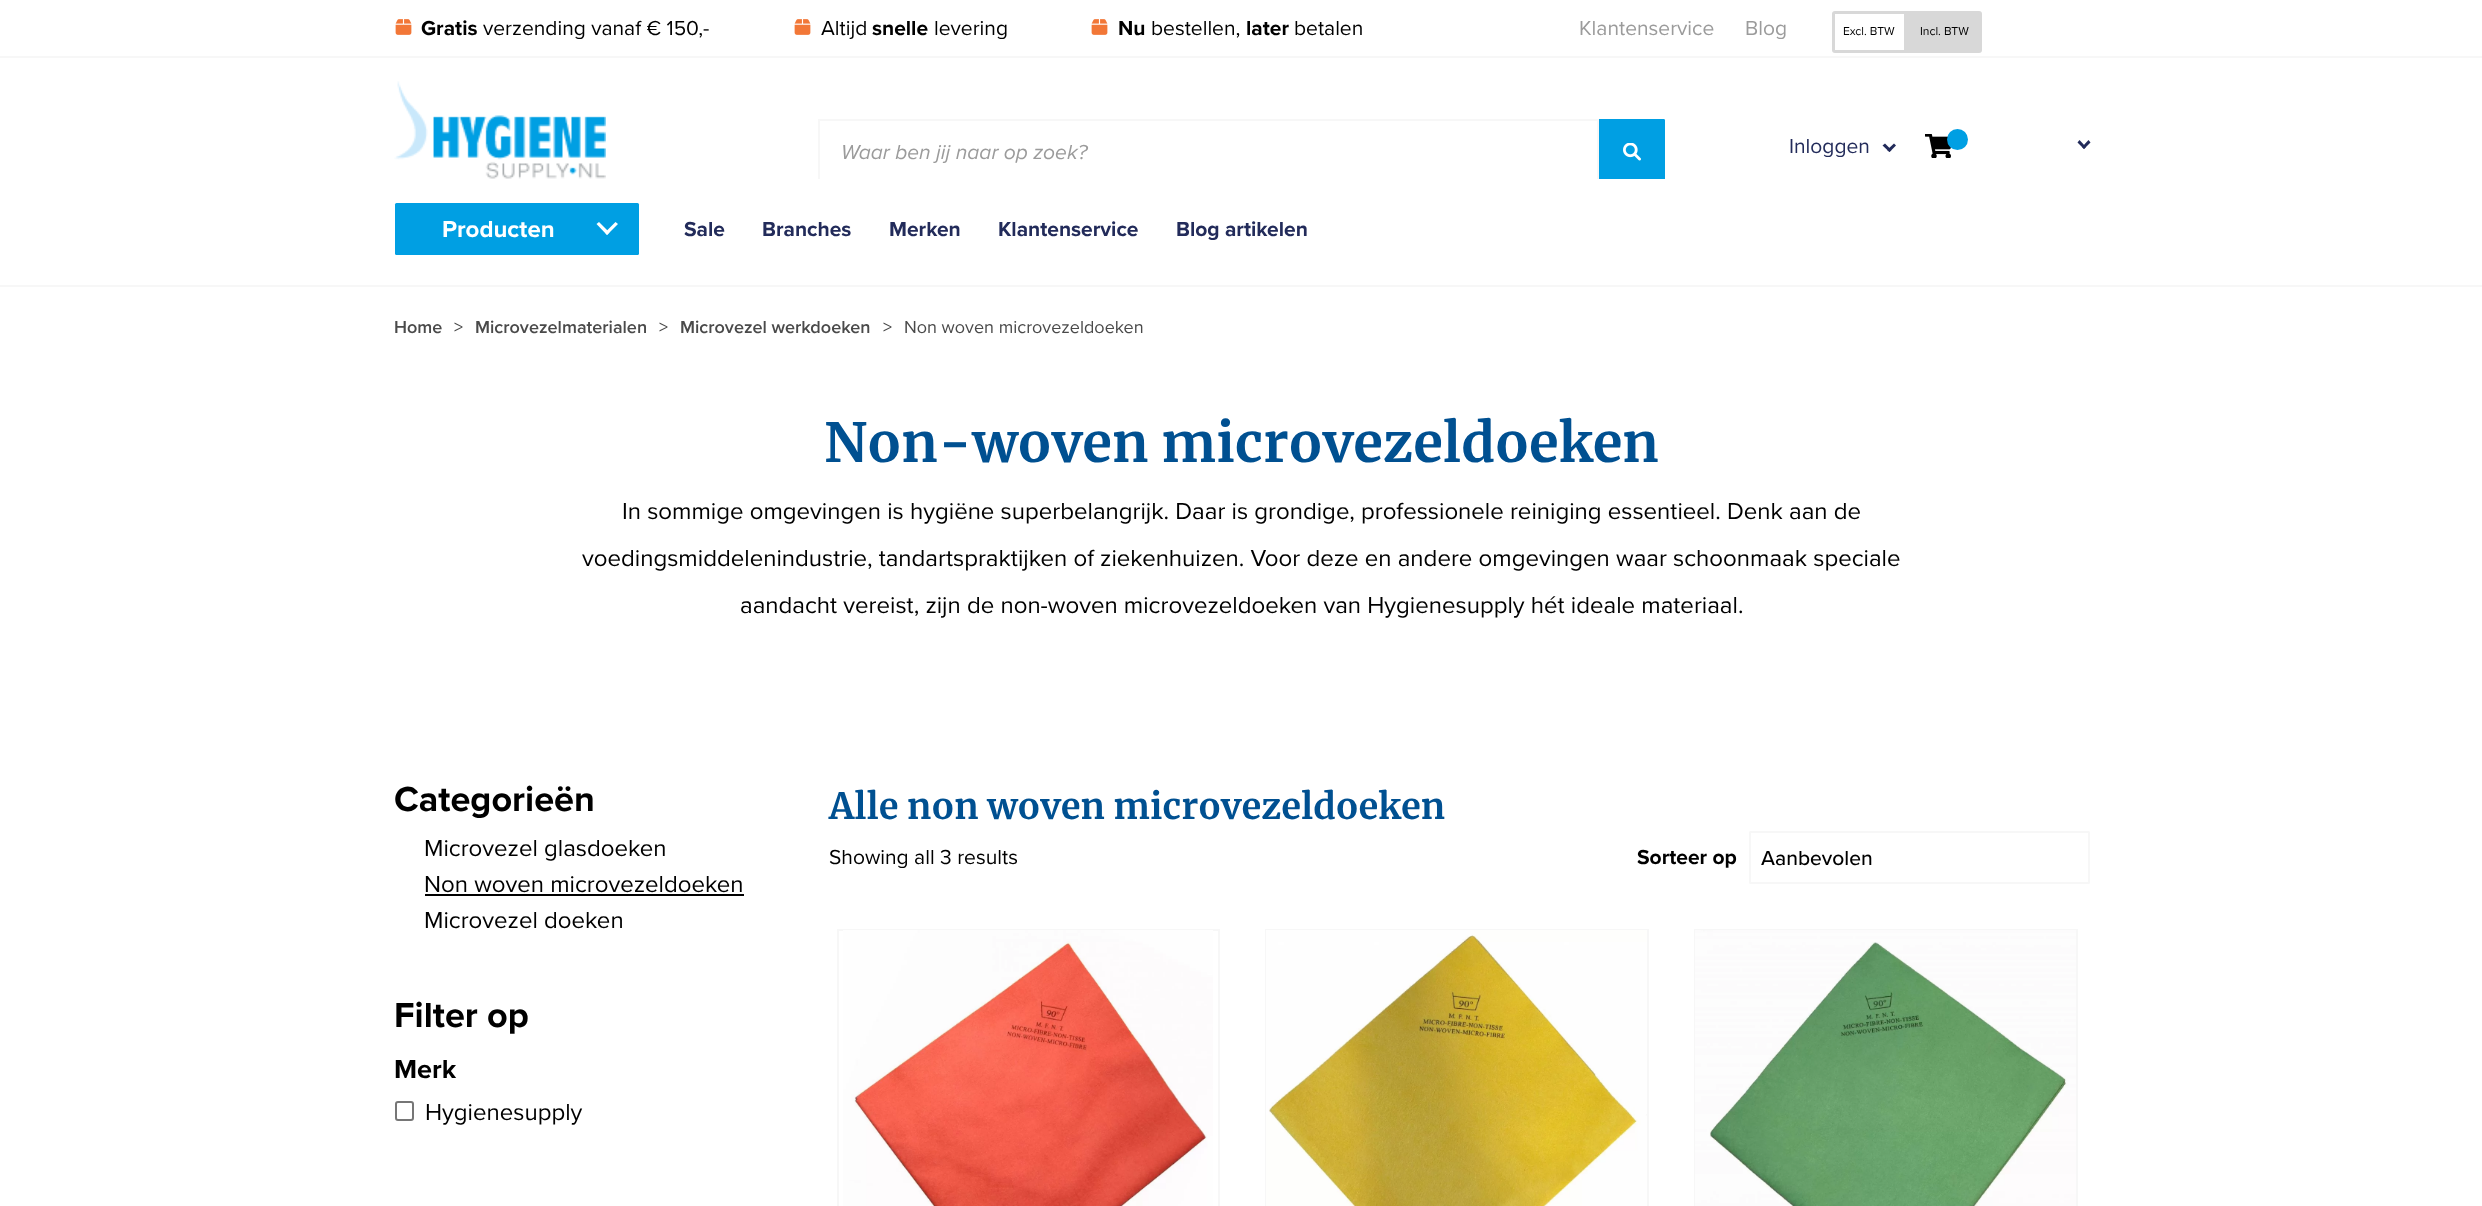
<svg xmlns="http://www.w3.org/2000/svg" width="2482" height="1206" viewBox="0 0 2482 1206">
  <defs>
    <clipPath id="clip1"><rect x="818" y="119" width="847" height="60"/></clipPath>
  </defs>
  <rect width="100%" height="100%" fill="rgb(255,255,255)"/>
  <rect x="0" y="285" width="2482" height="2" fill="rgb(247,247,247)"/>
  <rect x="0" y="56" width="2482" height="2" fill="rgb(247,247,247)"/>
  <image x="395" y="19" width="17" height="16" href="pic1.png"/>
  <text x="421" y="35" font-family="Proxima Nova" font-size="21" font-weight="bold" fill="rgb(0,0,0)">Gratis</text>
  <text x="483" y="35" font-family="Proxima Nova" font-size="21" fill="rgb(0,0,0)">verzending vanaf € 150,-</text>
  <image x="794" y="19" width="17" height="16" href="pic1.png"/>
  <text x="821" y="35" font-family="Proxima Nova" font-size="21" fill="rgb(0,0,0)">Altijd</text>
  <text x="872" y="35" font-family="Proxima Nova" font-size="21" font-weight="bold" fill="rgb(0,0,0)">snelle</text>
  <text x="934" y="35" font-family="Proxima Nova" font-size="21" fill="rgb(0,0,0)">levering</text>
  <image x="1091" y="19" width="17" height="16" href="pic1.png"/>
  <text x="1118" y="35" font-family="Proxima Nova" font-size="21" font-weight="bold" fill="rgb(0,0,0)">Nu</text>
  <text x="1151" y="35" font-family="Proxima Nova" font-size="21" fill="rgb(0,0,0)">bestellen,</text>
  <text x="1246" y="35" font-family="Proxima Nova" font-size="21" font-weight="bold" fill="rgb(0,0,0)">later</text>
  <text x="1294" y="35" font-family="Proxima Nova" font-size="21" fill="rgb(0,0,0)">betalen</text>
  <g font-family="Proxima Nova" font-size="21" fill="rgb(155,155,155)">
    <text x="1579" y="35">Klantenservice</text>
    <text x="1745" y="35">Blog</text>
  </g>
  <path d="M1835 12.5H1905.5V51.5H1835C1834 51.5 1833.5 51 1833.5 50V14C1833.5 13 1834 12.5 1835 12.5Z" fill="none" stroke="rgb(216,216,216)" stroke-width="3"/>
  <text x="1843" y="35" font-family="Proxima Nova" font-size="12" fill="rgb(0,0,0)">Excl. BTW</text>
  <path d="M1908.5 12.5H1979C1980 12.5 1980.5 13 1980.5 14V50C1980.5 51 1980 51.5 1979 51.5H1908.5Z" fill="rgb(216,216,216)" stroke="rgb(216,216,216)" stroke-width="3"/>
  <text x="1920" y="35" font-family="Proxima Nova" font-size="12" fill="rgb(0,0,0)">Incl. BTW</text>
  <image x="394" y="81" width="212" height="98" href="pic2.png"/>
  <g clip-path="url(#clip1)">
    <rect x="819" y="120" width="779" height="65" fill="none" stroke="rgb(247,247,247)" stroke-width="2"/>
  </g>
  <path d="M1599 119H1663.5C1664.5 119 1665 119.5 1665 120.5V179H1599Z" fill="rgb(0,159,227)"/>
  <image x="1623" y="143" width="18" height="18" href="pic3.png"/>
  <text x="841" y="159" font-family="Proxima Nova" font-size="21" font-style="italic" fill="rgb(155,155,155)">Waar ben jij naar op zoek?</text>
  <text x="1789" y="153" font-family="Proxima Nova" font-size="21" fill="rgb(34,43,90)">Inloggen</text>
  <path d="M1896 145.5L1889.5 152L1887 150L1894 143.5Z" fill="rgb(34,43,90)"/>
  <path d="M1891.5 150L1889.5 152L1882.5 145.5L1885 143.5Z" fill="rgb(34,43,90)"/>
  <image x="1925" y="134" width="26" height="24" href="pic4.png"/>
  <circle cx="1957.5" cy="139.5" r="10.5" fill="rgb(0,159,227)"/>
  <path d="M2090.5 142.5L2084 149L2082 147L2088.5 140Z" fill="rgb(34,43,90)"/>
  <path d="M2086 147L2084 149L2077.5 142.5L2079.5 140Z" fill="rgb(34,43,90)"/>
  <rect x="395" y="203" width="244" height="52" rx="1.5" fill="rgb(0,159,227)"/>
  <text x="442" y="237" font-family="Proxima Nova" font-size="24" font-weight="bold" fill="rgb(255,255,255)">Producten</text>
  <path d="M618 224L607 235L605 232.5L615.5 222Z" fill="rgb(255,255,255)"/>
  <path d="M609.5 232.5L607 235L596.5 224L599 222Z" fill="rgb(255,255,255)"/>
  <g font-family="Proxima Nova" font-size="21" font-weight="bold" fill="rgb(34,43,90)">
    <text x="684" y="236">Sale</text>
    <text x="762" y="236">Branches</text>
    <text x="889" y="236">Merken</text>
    <text x="998" y="236">Klantenservice</text>
    <text x="1176" y="236">Blog artikelen</text>
  </g>
  <text x="394" y="333" font-family="Proxima Nova" font-size="18" font-weight="600" fill="rgb(74,74,74)">Home</text>
  <text x="454" y="333" font-family="Proxima Nova" font-size="18" fill="rgb(74,74,74)">&gt;</text>
  <text x="475" y="333" font-family="Proxima Nova" font-size="18" font-weight="600" fill="rgb(74,74,74)">Microvezelmaterialen</text>
  <text x="659" y="333" font-family="Proxima Nova" font-size="18" fill="rgb(74,74,74)">&gt;</text>
  <text x="680" y="333" font-family="Proxima Nova" font-size="18" font-weight="600" fill="rgb(74,74,74)">Microvezel werkdoeken</text>
  <g font-family="Proxima Nova" font-size="18" fill="rgb(74,74,74)">
    <text x="883" y="333">&gt;</text>
    <text x="904" y="333">Non woven microvezeldoeken</text>
  </g>
  <text x="824" y="462" font-family="Merriweather" font-size="54" font-weight="bold" fill="rgb(0,80,145)">Non-woven microvezeldoeken</text>
  <g font-family="Proxima Nova" font-size="24" fill="rgb(0,0,0)">
    <text x="622" y="519">In sommige omgevingen is hygiëne superbelangrijk. Daar is grondige, professionele reiniging essentieel. Denk aan de</text>
    <text x="582" y="566">voedingsmiddelenindustrie, tandartspraktijken of ziekenhuizen. Voor deze en andere omgevingen waar schoonmaak speciale</text>
    <text x="740" y="613">aandacht vereist, zijn de non-woven microvezeldoeken van Hygienesupply hét ideale materiaal.</text>
  </g>
  <text x="394" y="811" font-family="Proxima Nova" font-size="36" font-weight="bold" fill="rgb(0,0,0)">Categorieën</text>
  <g font-family="Proxima Nova" font-size="24" fill="rgb(0,0,0)">
    <text>
      <tspan x="424" y="856">Microvezel glasdoeken</tspan>
      <tspan x="424" y="892">Non woven microvezeldoeken</tspan>
    </text>
  </g>
  <rect x="425" y="894" width="319" height="2" fill="rgb(0,0,0)"/>
  <text x="424" y="928" font-family="Proxima Nova" font-size="24" fill="rgb(0,0,0)">Microvezel doeken</text>
  <text x="394" y="1027" font-family="Proxima Nova" font-size="36" font-weight="bold" fill="rgb(0,0,0)">Filter op</text>
  <text x="394" y="1078" font-family="Proxima Nova" font-size="27" font-weight="bold" fill="rgb(0,0,0)">Merk</text>
  <rect x="396" y="1102" width="17" height="18" rx="2" fill="none" stroke="rgb(118,118,118)" stroke-width="2"/>
  <text x="425" y="1120" font-family="Proxima Nova" font-size="24" fill="rgb(0,0,0)">Hygienesupply</text>
  <text x="829" y="819" font-family="Merriweather" font-size="36" font-weight="bold" fill="rgb(0,80,145)">Alle non woven microvezeldoeken</text>
  <text x="829" y="864" font-family="Proxima Nova" font-size="21" fill="rgb(0,0,0)">Showing all 3 results</text>
  <text x="1637" y="864" font-family="Proxima Nova" font-size="21" font-weight="bold" fill="rgb(0,0,0)">Sorteer op</text>
  <rect x="1750" y="832" width="339" height="51" rx="0.5" fill="none" stroke="rgb(247,247,247)" stroke-width="2"/>
  <text x="1761" y="865" font-family="Proxima Nova" font-size="21" font-weight="500" fill="rgb(0,0,0)">Aanbevolen</text>
  <rect x="838" y="930" width="381" height="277" fill="none" stroke="rgb(247,247,247)" stroke-width="2"/>
  <image x="843" y="930" width="370" height="276" href="pic5.png"/>
  <rect x="1266" y="930" width="382" height="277" fill="none" stroke="rgb(247,247,247)" stroke-width="2"/>
  <image x="1266" y="930" width="381" height="276" href="pic6.png"/>
  <rect x="1695" y="930" width="382" height="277" fill="none" stroke="rgb(247,247,247)" stroke-width="2"/>
  <image x="1695" y="930" width="381" height="276" href="pic7.png"/>
</svg>
